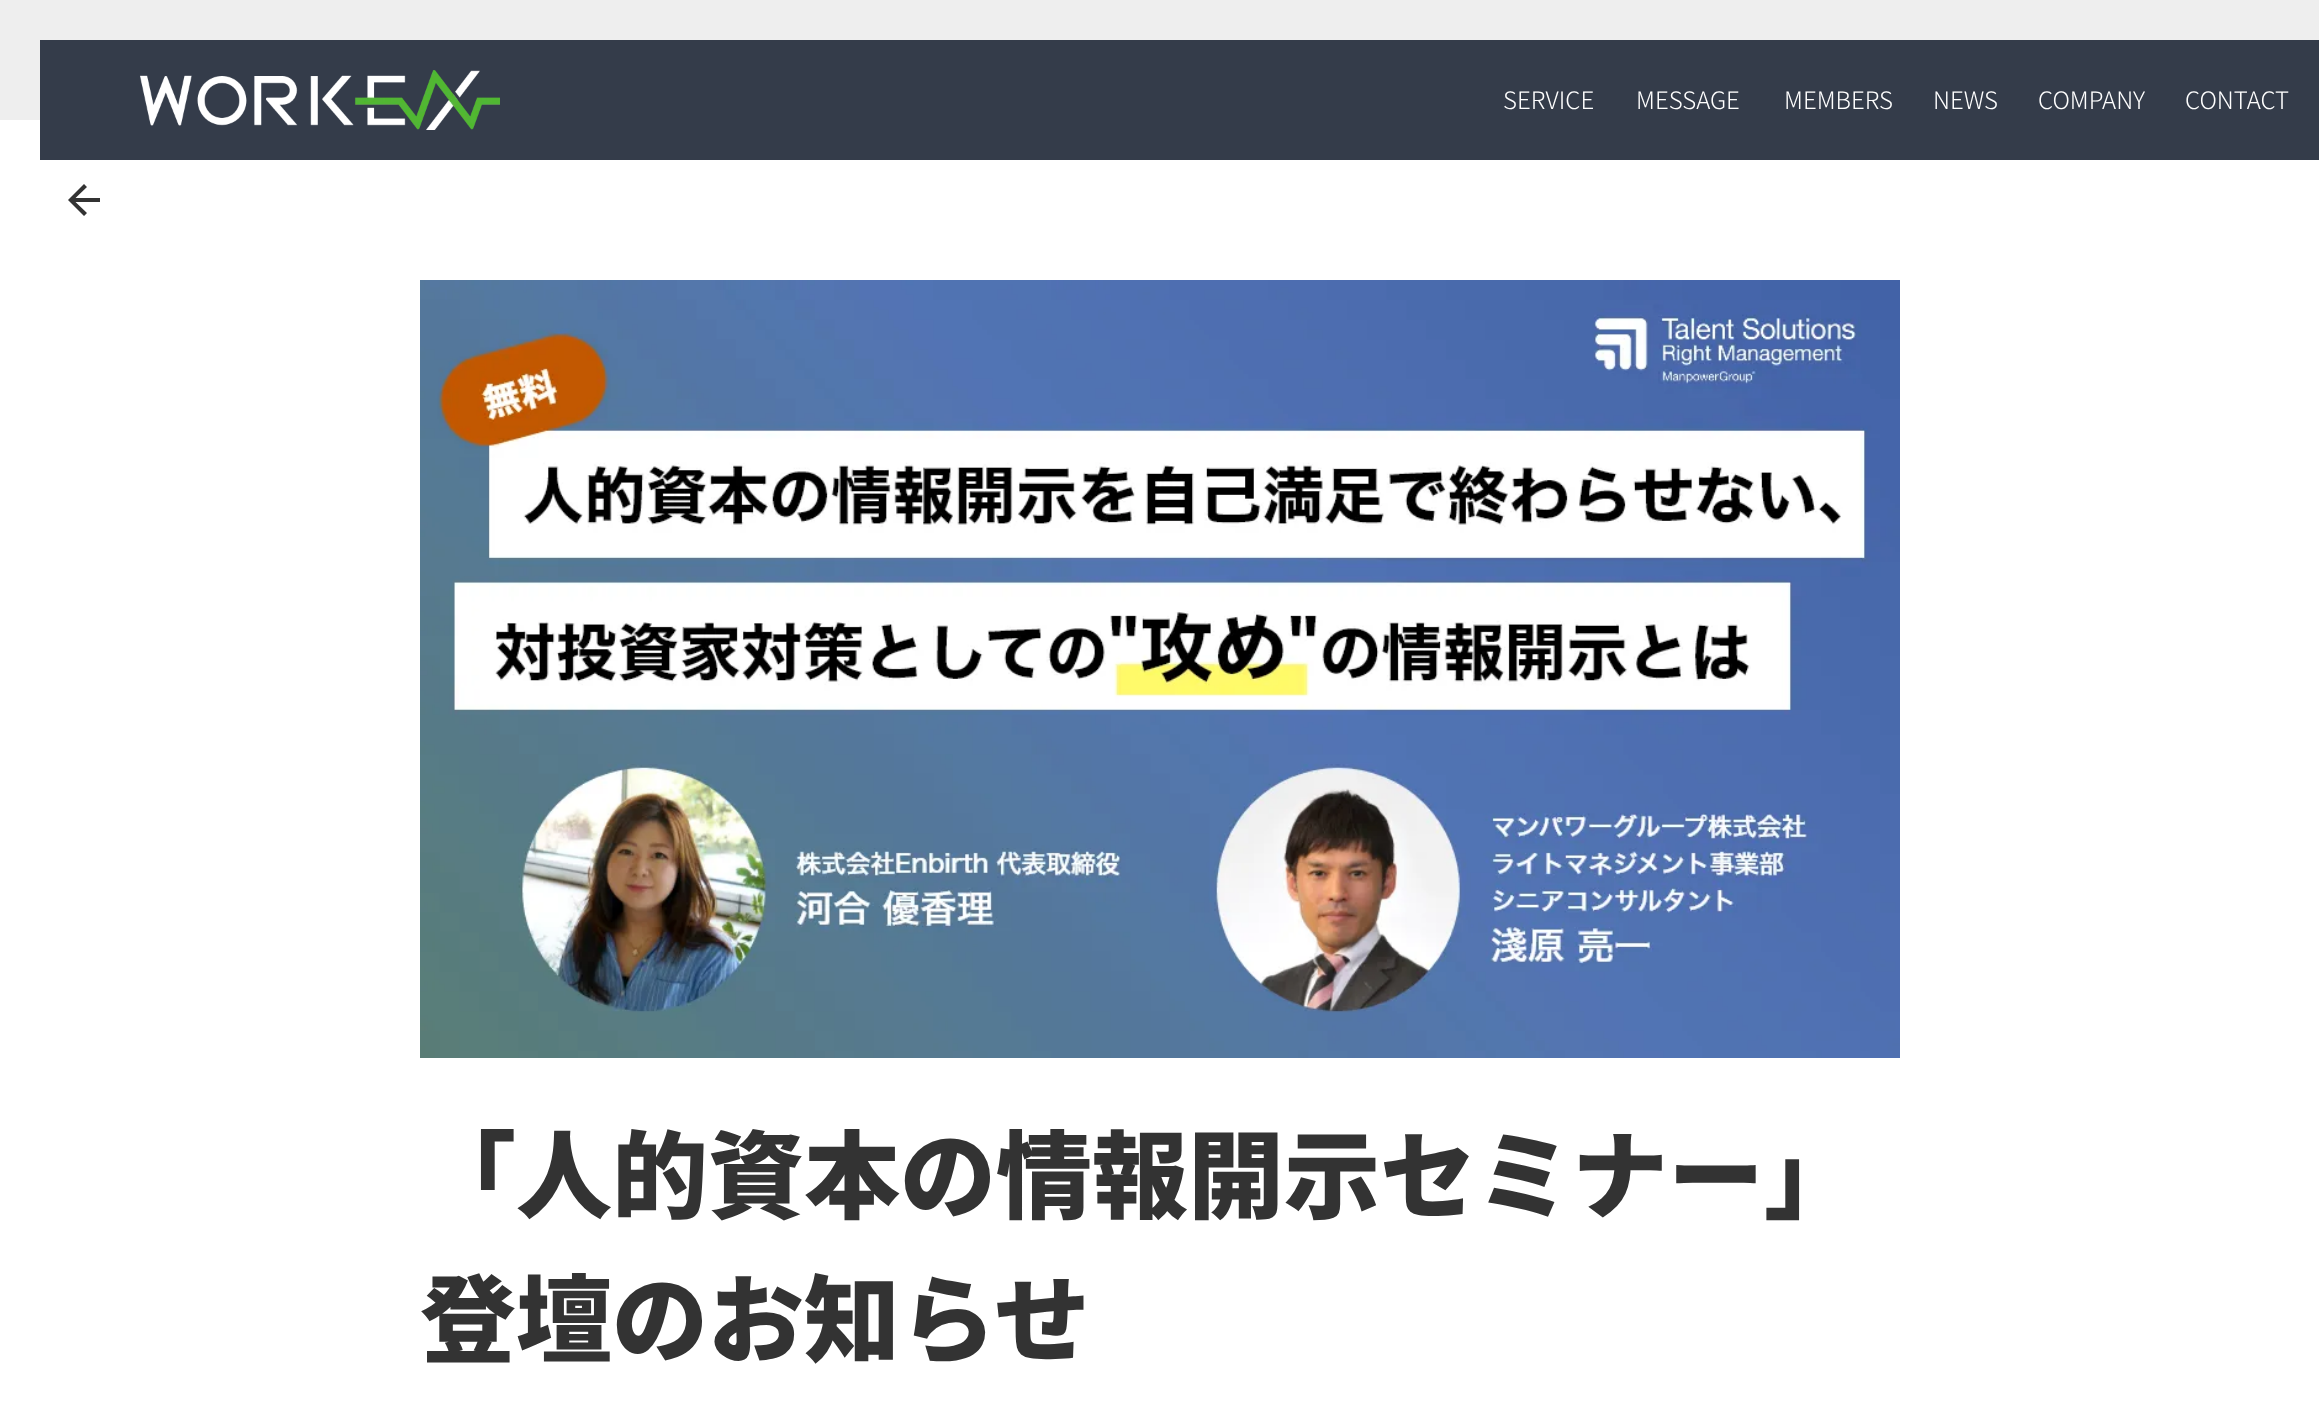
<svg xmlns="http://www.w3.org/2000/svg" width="2319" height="1405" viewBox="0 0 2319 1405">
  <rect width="100%" height="100%" fill="rgb(255,255,255)"/>
  <rect x="0" y="0" width="2319" height="120" fill="rgb(238,238,238)"/>
  <rect x="40" y="40" width="2279" height="120" fill="rgb(52,60,74)"/>
  <image x="140" y="70" width="360" height="60" href="pic1.png"/>
  <g font-family="Noto Sans JP" font-size="24" font-weight="300" fill="rgb(255,255,255)">
    <text x="1503" y="109">SERVICE</text>
    <text x="1636" y="109">MESSAGE</text>
    <text x="1784" y="109">MEMBERS</text>
    <text x="1933" y="109">NEWS</text>
    <text x="2038" y="109">COMPANY</text>
    <text x="2185" y="109">CONTACT</text>
  </g>
  <path d="M100 198V202H75.5L87 213L84 216L68 200L84 184L87 187L75.5 198Z" fill="rgb(51,51,51)"/>
  <image x="420" y="280" width="1480" height="778" href="pic2.png"/>
  <g font-family="Noto Sans JP" font-size="96" font-weight="900" fill="rgb(51,51,51)">
    <text>
      <tspan x="420" y="1211">「人的資本の情報開示セミナー」</tspan>
      <tspan x="420" y="1355">登壇のお知らせ</tspan>
    </text>
  </g>
</svg>
